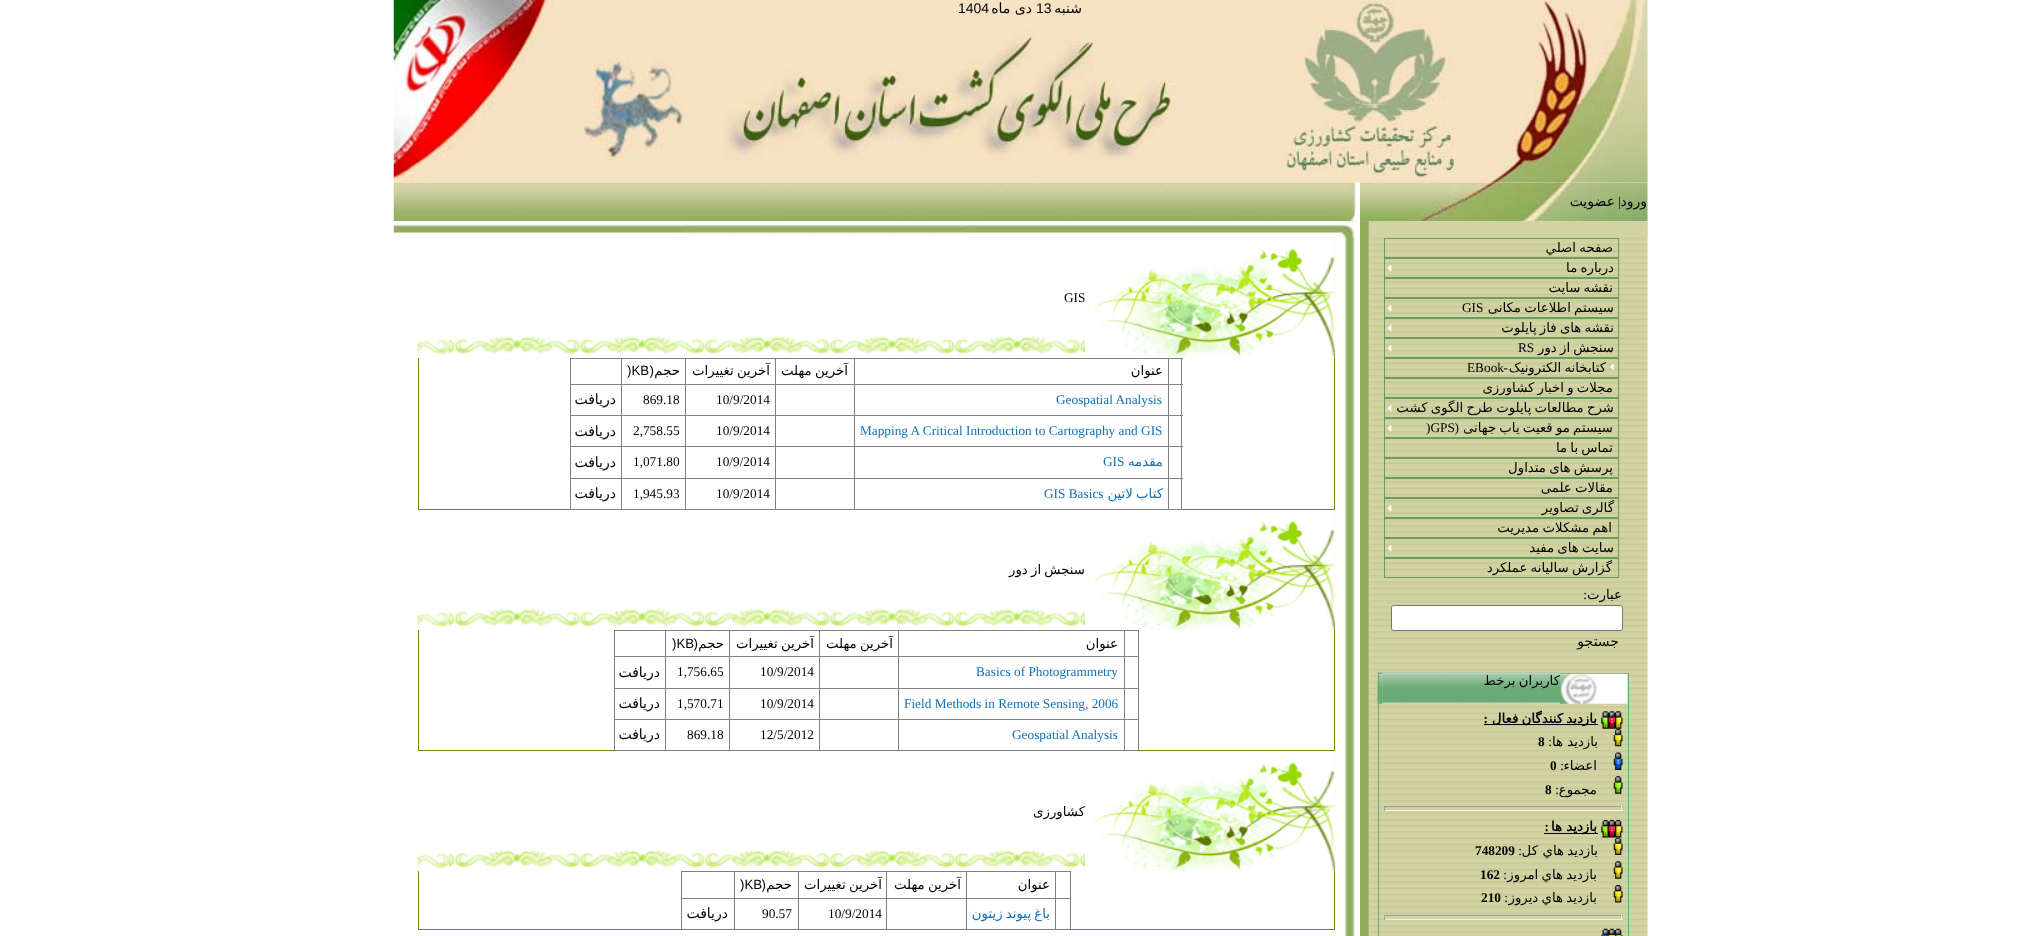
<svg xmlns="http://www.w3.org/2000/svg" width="2040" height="936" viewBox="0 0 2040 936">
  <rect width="100%" height="100%" fill="rgb(255,255,255)"/>
  <image x="393" y="0" width="1255" height="183" href="pic1.png"/>
  <text x="1082" y="13" font-family="DejaVu Sans" font-size="14" direction="rtl" fill="rgb(0,0,0)">شنبه</text>
  <text x="1036" y="13" font-family="Liberation Sans" font-size="14" fill="rgb(0,0,0)">13</text>
  <text x="1032" y="13" font-family="DejaVu Sans" font-size="14" direction="rtl" fill="rgb(0,0,0)">دی ماه</text>
  <text x="958" y="13" font-family="Liberation Sans" font-size="14" fill="rgb(0,0,0)">1404</text>
  <image x="1360" y="182" width="288" height="40" href="pic2.png"/>
  <text x="1647" y="206" font-family="DejaVu Sans" font-size="14" direction="rtl" fill="rgb(0,0,0)">ورود</text>
  <text x="1618" y="206" font-family="Liberation Serif" font-size="13.3" fill="rgb(0,0,0)">|</text>
  <text x="1615" y="206" font-family="DejaVu Sans" font-size="14" direction="rtl" fill="rgb(0,0,0)">عضويت</text>
  <image x="393" y="182" width="967" height="40" href="pic3.png"/>
  <image x="1360" y="221" width="288" height="715" href="pic4.png"/>
  <image x="1360" y="221" width="288" height="17" href="pic5.png"/>
  <rect x="1384.5" y="238.5" width="234" height="19" fill="none" stroke="rgb(107,157,94)"/>
  <text x="1613" y="252" word-spacing="-1" font-family="DejaVu Sans" font-size="13.3" direction="rtl" fill="rgb(0,0,0)">صفحه اصلي</text>
  <rect x="1384.5" y="258.5" width="234" height="19" fill="none" stroke="rgb(107,157,94)"/>
  <text x="1614" y="272" word-spacing="-1" font-family="DejaVu Sans" font-size="13.3" direction="rtl" fill="rgb(0,0,0)">درباره ما</text>
  <image x="1387" y="264" width="5" height="8" href="pic6.png"/>
  <rect x="1384.5" y="278.5" width="234" height="19" fill="none" stroke="rgb(107,157,94)"/>
  <text x="1613" y="292" word-spacing="-1" font-family="DejaVu Sans" font-size="13.3" direction="rtl" fill="rgb(0,0,0)">نقشه سایت</text>
  <rect x="1384.5" y="298.5" width="234" height="19" fill="none" stroke="rgb(107,157,94)"/>
  <text x="1614" y="312" word-spacing="-1" font-family="DejaVu Sans" font-size="13.3" direction="rtl" fill="rgb(0,0,0)">سیستم اطلاعات مکانی</text>
  <text x="1462" y="312" font-family="Liberation Serif" font-size="13.3" fill="rgb(0,0,0)">GIS</text>
  <image x="1387" y="304" width="5" height="8" href="pic7.png"/>
  <rect x="1384.5" y="318.5" width="234" height="19" fill="none" stroke="rgb(107,157,94)"/>
  <text x="1614" y="332" word-spacing="-1" font-family="DejaVu Sans" font-size="13.3" direction="rtl" fill="rgb(0,0,0)">نقشه های فاز پایلوت</text>
  <image x="1387" y="324" width="5" height="8" href="pic8.png"/>
  <rect x="1384.5" y="338.5" width="234" height="19" fill="none" stroke="rgb(107,157,94)"/>
  <text x="1614" y="352" word-spacing="-1" font-family="DejaVu Sans" font-size="13.3" direction="rtl" fill="rgb(0,0,0)">سنجش از دور</text>
  <text x="1518" y="352" font-family="Liberation Serif" font-size="13.3" fill="rgb(0,0,0)">RS</text>
  <image x="1387" y="344" width="5" height="8" href="pic9.png"/>
  <rect x="1384.5" y="358.5" width="234" height="19" fill="none" stroke="rgb(107,157,94)"/>
  <image x="1610" y="363" width="4" height="8" href="pic10.png"/>
  <text x="1606" y="372" word-spacing="-1" font-family="DejaVu Sans" font-size="13.3" direction="rtl" fill="rgb(0,0,0)">کتابخانه الکترونیک</text>
  <text x="1508" y="372" font-family="Liberation Serif" font-size="13.3" direction="rtl" fill="rgb(0,0,0)">-</text>
  <text x="1467" y="372" font-family="Liberation Serif" font-size="13.3" fill="rgb(0,0,0)">EBook</text>
  <rect x="1384.5" y="378.5" width="234" height="19" fill="none" stroke="rgb(107,157,94)"/>
  <text x="1613" y="392" word-spacing="-1" font-family="DejaVu Sans" font-size="13.3" direction="rtl" fill="rgb(0,0,0)">مجلات و اخبار کشاورزی</text>
  <rect x="1384.5" y="398.5" width="234" height="19" fill="none" stroke="rgb(107,157,94)"/>
  <text x="1614" y="412" word-spacing="-1" font-family="DejaVu Sans" font-size="13.3" direction="rtl" fill="rgb(0,0,0)">شرح مطالعات پایلوت طرح الگوی کشت</text>
  <image x="1387" y="404" width="5" height="8" href="pic7.png"/>
  <rect x="1384.5" y="418.5" width="234" height="19" fill="none" stroke="rgb(107,157,94)"/>
  <text x="1613" y="432" word-spacing="-1" font-family="DejaVu Sans" font-size="13.3" direction="rtl" fill="rgb(0,0,0)">سیستم مو قعیت یاب جهانی</text>
  <text x="1459" y="432" font-family="Liberation Serif" font-size="13.3" direction="rtl" fill="rgb(0,0,0)">(</text>
  <text x="1426" y="432" font-family="Liberation Serif" font-size="13.3" fill="rgb(0,0,0)">)GPS</text>
  <image x="1387" y="424" width="5" height="8" href="pic8.png"/>
  <rect x="1384.5" y="438.5" width="234" height="19" fill="none" stroke="rgb(107,157,94)"/>
  <text x="1613" y="452" word-spacing="-1" font-family="DejaVu Sans" font-size="13.3" direction="rtl" fill="rgb(0,0,0)">تماس با ما</text>
  <rect x="1384.5" y="458.5" width="234" height="19" fill="none" stroke="rgb(107,157,94)"/>
  <text x="1613" y="472" word-spacing="-1" font-family="DejaVu Sans" font-size="13.3" direction="rtl" fill="rgb(0,0,0)">پرسش های متداول</text>
  <rect x="1384.5" y="478.5" width="234" height="19" fill="none" stroke="rgb(107,157,94)"/>
  <text x="1613" y="492" word-spacing="-1" font-family="DejaVu Sans" font-size="13.3" direction="rtl" fill="rgb(0,0,0)">مقالات علمی</text>
  <rect x="1384.5" y="498.5" width="234" height="19" fill="none" stroke="rgb(107,157,94)"/>
  <text x="1614" y="512" word-spacing="-1" font-family="DejaVu Sans" font-size="13.3" direction="rtl" fill="rgb(0,0,0)">گالری تصاویر</text>
  <image x="1387" y="504" width="5" height="8" href="pic7.png"/>
  <rect x="1384.5" y="518.5" width="234" height="19" fill="none" stroke="rgb(107,157,94)"/>
  <text x="1612" y="532" word-spacing="-1" font-family="DejaVu Sans" font-size="13.3" direction="rtl" fill="rgb(0,0,0)">اهم مشکلات مدیریت</text>
  <rect x="1384.5" y="538.5" width="234" height="19" fill="none" stroke="rgb(107,157,94)"/>
  <text x="1614" y="552" word-spacing="-1" font-family="DejaVu Sans" font-size="13.3" direction="rtl" fill="rgb(0,0,0)">سایت های مفید</text>
  <image x="1387" y="544" width="5" height="8" href="pic9.png"/>
  <rect x="1384.5" y="558.5" width="234" height="19" fill="none" stroke="rgb(107,157,94)"/>
  <g font-family="DejaVu Sans" font-size="13.3" direction="rtl" fill="rgb(0,0,0)">
    <text x="1612" y="572" word-spacing="-1">گزارش سالیانه عملکرد</text>
    <text x="1622" y="599">عبارت</text>
  </g>
  <text x="1587" y="599" font-family="Liberation Serif" font-size="13.3" direction="rtl" fill="rgb(0,0,0)">:</text>
  <rect x="1391.5" y="605.5" width="231" height="25" rx="2" fill="rgb(255,255,255)" stroke="rgb(118,118,118)"/>
  <text x="1619" y="646" font-family="DejaVu Sans" font-size="14" direction="rtl" fill="rgb(0,0,0)">جستجو</text>
  <rect x="1560" y="673" width="69" height="1" fill="rgb(106,171,117)"/>
  <rect x="1628" y="673" width="1" height="263" fill="rgb(106,171,117)"/>
  <image x="1560" y="673" width="68" height="31" href="pic11.png"/>
  <image x="1377" y="672" width="6" height="32" href="pic13.png"/>
  <rect x="1378" y="673" width="5" height="1" fill="rgb(106,171,117)"/>
  <image x="1382" y="672" width="178" height="32" href="pic12.png"/>
  <text x="1560" y="685" word-spacing="-1" font-family="DejaVu Sans" font-size="13.3" direction="rtl" fill="rgb(0,0,0)">کاربران برخط</text>
  <rect x="1378" y="673" width="1" height="263" fill="rgb(106,171,117)"/>
  <image x="1601" y="711" width="22" height="18" href="pic14.png"/>
  <rect x="1484" y="724" width="114" height="1" fill="rgb(0,0,0)"/>
  <text x="1597" y="723" word-spacing="-1" font-family="DejaVu Sans" font-size="13.3" font-weight="bold" direction="rtl" fill="rgb(0,0,0)">بازديد كنندگان فعال</text>
  <text x="1488" y="723" font-family="Liberation Serif" font-size="13.3" font-weight="bold" direction="rtl" fill="rgb(0,0,0)">:</text>
  <image x="1613" y="728" width="10" height="19" href="pic15.png"/>
  <text x="1598" y="746" font-family="DejaVu Sans" font-size="13.3" direction="rtl" fill="rgb(0,0,0)">بازديد ها</text>
  <text x="1552" y="746" font-family="Liberation Serif" font-size="13.3" direction="rtl" fill="rgb(0,0,0)">:</text>
  <text x="1538" y="746" font-family="Liberation Serif" font-size="13.3" font-weight="bold" fill="rgb(0,0,0)">8</text>
  <image x="1613" y="752" width="10" height="18" href="pic16.png"/>
  <text x="1597" y="770" font-family="DejaVu Sans" font-size="13.3" direction="rtl" fill="rgb(0,0,0)">اعضاء</text>
  <text x="1564" y="770" font-family="Liberation Serif" font-size="13.3" direction="rtl" fill="rgb(0,0,0)">:</text>
  <text x="1550" y="770" font-family="Liberation Serif" font-size="13.3" font-weight="bold" fill="rgb(0,0,0)">0</text>
  <image x="1613" y="776" width="10" height="18" href="pic17.png"/>
  <text x="1597" y="794" font-family="DejaVu Sans" font-size="13.3" direction="rtl" fill="rgb(0,0,0)">مجموع</text>
  <text x="1559" y="794" font-family="Liberation Serif" font-size="13.3" direction="rtl" fill="rgb(0,0,0)">:</text>
  <text x="1545" y="794" font-family="Liberation Serif" font-size="13.3" font-weight="bold" fill="rgb(0,0,0)">8</text>
  <rect x="1384" y="806" width="239" height="1" fill="rgb(159,159,159)"/>
  <rect x="1621" y="806" width="1" height="5" fill="rgb(238,238,238)"/>
  <rect x="1384" y="810" width="239" height="1" fill="rgb(238,238,238)"/>
  <rect x="1384" y="806" width="1" height="5" fill="rgb(159,159,159)"/>
  <image x="1601" y="820" width="22" height="18" href="pic18.png"/>
  <rect x="1544" y="833" width="54" height="1" fill="rgb(0,0,0)"/>
  <text x="1597" y="831" font-family="DejaVu Sans" font-size="13.3" font-weight="bold" direction="rtl" fill="rgb(0,0,0)">بازديد ها</text>
  <text x="1549" y="831" font-family="Liberation Serif" font-size="13.3" font-weight="bold" direction="rtl" fill="rgb(0,0,0)">:</text>
  <image x="1613" y="837" width="10" height="18" href="pic19.png"/>
  <g font-family="DejaVu Sans" font-size="13.3" direction="rtl" fill="rgb(0,0,0)">
    <text x="1598" y="855" word-spacing="-1">بازديد هاي</text>
    <text x="1538" y="855">كل</text>
  </g>
  <text x="1522" y="855" font-family="Liberation Serif" font-size="13.3" direction="rtl" fill="rgb(0,0,0)">:</text>
  <text x="1475" y="855" font-family="Liberation Serif" font-size="13.3" font-weight="bold" fill="rgb(0,0,0)">748209</text>
  <image x="1613" y="861" width="10" height="18" href="pic20.png"/>
  <text x="1597" y="879" word-spacing="-1" font-family="DejaVu Sans" font-size="13.3" direction="rtl" fill="rgb(0,0,0)">بازديد هاي امروز</text>
  <text x="1507" y="879" font-family="Liberation Serif" font-size="13.3" direction="rtl" fill="rgb(0,0,0)">:</text>
  <text x="1480" y="879" font-family="Liberation Serif" font-size="13.3" font-weight="bold" fill="rgb(0,0,0)">162</text>
  <image x="1613" y="885" width="10" height="18" href="pic21.png"/>
  <text x="1597" y="902" word-spacing="-1" font-family="DejaVu Sans" font-size="13.3" direction="rtl" fill="rgb(0,0,0)">بازديد هاي ديروز</text>
  <text x="1508" y="902" font-family="Liberation Serif" font-size="13.3" direction="rtl" fill="rgb(0,0,0)">:</text>
  <text x="1481" y="902" font-family="Liberation Serif" font-size="13.3" font-weight="bold" fill="rgb(0,0,0)">210</text>
  <rect x="1384" y="915" width="239" height="1" fill="rgb(159,159,159)"/>
  <rect x="1621" y="915" width="1" height="5" fill="rgb(238,238,238)"/>
  <rect x="1384" y="919" width="239" height="1" fill="rgb(238,238,238)"/>
  <rect x="1384" y="915" width="1" height="5" fill="rgb(159,159,159)"/>
  <image x="1601" y="928" width="22" height="8" href="pic22.png"/>
  <image x="394" y="221" width="961" height="715" href="pic23.png"/>
  <image x="393" y="221" width="962" height="17" href="pic24.png"/>
  <image x="1094" y="248" width="241" height="110" href="pic25.png"/>
  <image x="1158" y="257" width="177" height="101" href="pic26.png"/>
  <image x="417" y="339" width="32" height="16" href="pic28.png"/>
  <image x="448" y="336" width="637" height="18" href="pic27.png"/>
  <text x="1064" y="302" font-family="Liberation Serif" font-size="13.3" fill="rgb(0,0,0)">GIS</text>
  <image x="417" y="339" width="32" height="15" href="pic29.png"/>
  <rect x="1334" y="358" width="1" height="152" fill="rgb(107,138,19)"/>
  <rect x="418" y="509" width="917" height="1" fill="rgb(107,138,19)"/>
  <rect x="418" y="358" width="1" height="152" fill="rgb(107,138,19)"/>
  <rect x="570" y="358" width="53" height="1" fill="rgb(128,128,128)"/>
  <rect x="570" y="384" width="53" height="1" fill="rgb(128,128,128)"/>
  <rect x="570" y="415" width="53" height="1" fill="rgb(128,128,128)"/>
  <rect x="570" y="446" width="53" height="1" fill="rgb(128,128,128)"/>
  <rect x="570" y="478" width="53" height="1" fill="rgb(128,128,128)"/>
  <rect x="621" y="478" width="1" height="32" fill="rgb(128,128,128)"/>
  <rect x="621" y="478" width="65" height="1" fill="rgb(128,128,128)"/>
  <rect x="621" y="446" width="1" height="33" fill="rgb(128,128,128)"/>
  <rect x="621" y="446" width="65" height="1" fill="rgb(128,128,128)"/>
  <rect x="621" y="415" width="1" height="33" fill="rgb(128,128,128)"/>
  <rect x="621" y="415" width="65" height="1" fill="rgb(128,128,128)"/>
  <rect x="621" y="384" width="1" height="32" fill="rgb(128,128,128)"/>
  <rect x="621" y="384" width="65" height="1" fill="rgb(128,128,128)"/>
  <rect x="621" y="358" width="1" height="27" fill="rgb(128,128,128)"/>
  <rect x="621" y="358" width="65" height="1" fill="rgb(128,128,128)"/>
  <rect x="685" y="478" width="1" height="32" fill="rgb(128,128,128)"/>
  <rect x="685" y="478" width="91" height="1" fill="rgb(128,128,128)"/>
  <rect x="685" y="446" width="1" height="33" fill="rgb(128,128,128)"/>
  <rect x="685" y="446" width="91" height="1" fill="rgb(128,128,128)"/>
  <rect x="685" y="415" width="1" height="33" fill="rgb(128,128,128)"/>
  <rect x="685" y="415" width="91" height="1" fill="rgb(128,128,128)"/>
  <rect x="685" y="384" width="1" height="32" fill="rgb(128,128,128)"/>
  <rect x="685" y="384" width="91" height="1" fill="rgb(128,128,128)"/>
  <rect x="685" y="358" width="1" height="27" fill="rgb(128,128,128)"/>
  <rect x="685" y="358" width="91" height="1" fill="rgb(128,128,128)"/>
  <rect x="775" y="478" width="1" height="32" fill="rgb(128,128,128)"/>
  <rect x="775" y="478" width="80" height="1" fill="rgb(128,128,128)"/>
  <rect x="775" y="446" width="1" height="33" fill="rgb(128,128,128)"/>
  <rect x="775" y="446" width="80" height="1" fill="rgb(128,128,128)"/>
  <rect x="775" y="415" width="1" height="33" fill="rgb(128,128,128)"/>
  <rect x="775" y="415" width="80" height="1" fill="rgb(128,128,128)"/>
  <rect x="775" y="384" width="1" height="32" fill="rgb(128,128,128)"/>
  <rect x="775" y="384" width="80" height="1" fill="rgb(128,128,128)"/>
  <rect x="775" y="358" width="1" height="27" fill="rgb(128,128,128)"/>
  <rect x="775" y="358" width="80" height="1" fill="rgb(128,128,128)"/>
  <rect x="854" y="478" width="1" height="32" fill="rgb(128,128,128)"/>
  <rect x="854" y="478" width="315" height="1" fill="rgb(128,128,128)"/>
  <rect x="854" y="446" width="1" height="33" fill="rgb(128,128,128)"/>
  <rect x="854" y="446" width="315" height="1" fill="rgb(128,128,128)"/>
  <rect x="854" y="415" width="1" height="33" fill="rgb(128,128,128)"/>
  <rect x="854" y="415" width="315" height="1" fill="rgb(128,128,128)"/>
  <rect x="854" y="384" width="1" height="32" fill="rgb(128,128,128)"/>
  <rect x="854" y="384" width="315" height="1" fill="rgb(128,128,128)"/>
  <rect x="854" y="358" width="1" height="27" fill="rgb(128,128,128)"/>
  <rect x="854" y="358" width="315" height="1" fill="rgb(128,128,128)"/>
  <rect x="1168" y="478" width="1" height="32" fill="rgb(128,128,128)"/>
  <rect x="1168" y="478" width="15" height="1" fill="rgb(128,128,128)"/>
  <rect x="1168" y="446" width="1" height="33" fill="rgb(128,128,128)"/>
  <rect x="1168" y="446" width="15" height="1" fill="rgb(128,128,128)"/>
  <rect x="1168" y="415" width="1" height="33" fill="rgb(128,128,128)"/>
  <rect x="1168" y="415" width="15" height="1" fill="rgb(128,128,128)"/>
  <rect x="1168" y="384" width="1" height="32" fill="rgb(128,128,128)"/>
  <rect x="1168" y="384" width="15" height="1" fill="rgb(128,128,128)"/>
  <rect x="1168" y="358" width="1" height="27" fill="rgb(128,128,128)"/>
  <rect x="1168" y="358" width="15" height="1" fill="rgb(128,128,128)"/>
  <rect x="1181" y="478" width="1" height="32" fill="rgb(128,128,128)"/>
  <rect x="1181" y="446" width="1" height="33" fill="rgb(128,128,128)"/>
  <rect x="1181" y="415" width="1" height="33" fill="rgb(128,128,128)"/>
  <rect x="1181" y="384" width="1" height="32" fill="rgb(128,128,128)"/>
  <rect x="1181" y="358" width="1" height="27" fill="rgb(128,128,128)"/>
  <g font-family="DejaVu Sans" font-size="13.3" direction="rtl" fill="rgb(0,0,0)">
    <text x="1163" y="375">عنوان</text>
    <text x="848" y="375" word-spacing="-1">آخرين مهلت</text>
    <text x="770" y="375" word-spacing="-1">آخرین تغییرات</text>
    <text x="680" y="375">حجم</text>
  </g>
  <text x="654" y="375" font-family="Liberation Sans" font-size="13.3" direction="rtl" fill="rgb(0,0,0)">(</text>
  <text x="627" y="375" font-family="Liberation Sans" font-size="13.3" fill="rgb(0,0,0)">)KB</text>
  <rect x="570" y="509" width="53" height="1" fill="rgb(128,128,128)"/>
  <rect x="570" y="478" width="1" height="32" fill="rgb(128,128,128)"/>
  <rect x="570" y="446" width="1" height="33" fill="rgb(128,128,128)"/>
  <rect x="570" y="415" width="1" height="33" fill="rgb(128,128,128)"/>
  <rect x="570" y="384" width="1" height="32" fill="rgb(128,128,128)"/>
  <rect x="570" y="358" width="1" height="27" fill="rgb(128,128,128)"/>
  <text x="1056" y="404" font-family="Liberation Serif" font-size="13.3" fill="rgb(15,113,185)">Geospatial Analysis</text>
  <g font-family="Liberation Serif" font-size="13.3" fill="rgb(0,0,0)">
    <text x="716" y="404">10/9/2014</text>
    <text x="643" y="404">869.18</text>
  </g>
  <text x="616" y="404" font-family="DejaVu Sans" font-size="14" direction="rtl" fill="rgb(0,0,0)">دريافت</text>
  <text x="860" y="435" font-family="Liberation Serif" font-size="13.3" fill="rgb(15,113,185)">Mapping A Critical Introduction to Cartography and GIS</text>
  <g font-family="Liberation Serif" font-size="13.3" fill="rgb(0,0,0)">
    <text x="716" y="435">10/9/2014</text>
    <text x="633" y="435">2,758.55</text>
  </g>
  <text x="616" y="436" font-family="DejaVu Sans" font-size="14" direction="rtl" fill="rgb(0,0,0)">دريافت</text>
  <text x="1163" y="466" font-family="DejaVu Sans" font-size="13.3" direction="rtl" fill="rgb(15,113,185)">مقدمه</text>
  <text x="1103" y="466" font-family="Liberation Serif" font-size="13.3" fill="rgb(15,113,185)">GIS</text>
  <g font-family="Liberation Serif" font-size="13.3" fill="rgb(0,0,0)">
    <text x="716" y="466">10/9/2014</text>
    <text x="633" y="466">1,071.80</text>
  </g>
  <text x="616" y="467" font-family="DejaVu Sans" font-size="14" direction="rtl" fill="rgb(0,0,0)">دريافت</text>
  <rect x="621" y="509" width="65" height="1" fill="rgb(128,128,128)"/>
  <rect x="685" y="509" width="91" height="1" fill="rgb(128,128,128)"/>
  <rect x="775" y="509" width="80" height="1" fill="rgb(128,128,128)"/>
  <rect x="854" y="509" width="315" height="1" fill="rgb(128,128,128)"/>
  <rect x="1168" y="509" width="15" height="1" fill="rgb(128,128,128)"/>
  <text x="1163" y="498" word-spacing="-1" font-family="DejaVu Sans" font-size="13.3" direction="rtl" fill="rgb(15,113,185)">کتاب لاتین</text>
  <text x="1044" y="498" font-family="Liberation Serif" font-size="13.3" fill="rgb(15,113,185)">GIS Basics</text>
  <g font-family="Liberation Serif" font-size="13.3" fill="rgb(0,0,0)">
    <text x="716" y="498">10/9/2014</text>
    <text x="633" y="498">1,945.93</text>
  </g>
  <text x="616" y="498" font-family="DejaVu Sans" font-size="14" direction="rtl" fill="rgb(0,0,0)">دريافت</text>
  <image x="1094" y="521" width="241" height="109" href="pic30.png"/>
  <image x="1324" y="529" width="11" height="101" href="pic31.png"/>
  <image x="417" y="611" width="32" height="17" href="pic33.png"/>
  <image x="448" y="608" width="637" height="19" href="pic32.png"/>
  <text x="1085" y="574" word-spacing="-1" font-family="DejaVu Sans" font-size="13.3" direction="rtl" fill="rgb(0,0,0)">سنجش از دور</text>
  <image x="417" y="612" width="32" height="14" href="pic34.png"/>
  <rect x="1334" y="630" width="1" height="121" fill="rgb(107,138,19)"/>
  <rect x="418" y="750" width="917" height="1" fill="rgb(107,138,19)"/>
  <rect x="418" y="630" width="1" height="121" fill="rgb(107,138,19)"/>
  <rect x="614" y="630" width="52" height="1" fill="rgb(128,128,128)"/>
  <rect x="614" y="656" width="52" height="1" fill="rgb(128,128,128)"/>
  <rect x="614" y="688" width="52" height="1" fill="rgb(128,128,128)"/>
  <rect x="614" y="719" width="52" height="1" fill="rgb(128,128,128)"/>
  <rect x="665" y="719" width="1" height="32" fill="rgb(128,128,128)"/>
  <rect x="665" y="719" width="65" height="1" fill="rgb(128,128,128)"/>
  <rect x="665" y="688" width="1" height="32" fill="rgb(128,128,128)"/>
  <rect x="665" y="688" width="65" height="1" fill="rgb(128,128,128)"/>
  <rect x="665" y="656" width="1" height="33" fill="rgb(128,128,128)"/>
  <rect x="665" y="656" width="65" height="1" fill="rgb(128,128,128)"/>
  <rect x="665" y="630" width="1" height="28" fill="rgb(128,128,128)"/>
  <rect x="665" y="630" width="65" height="1" fill="rgb(128,128,128)"/>
  <rect x="729" y="719" width="1" height="32" fill="rgb(128,128,128)"/>
  <rect x="729" y="719" width="91" height="1" fill="rgb(128,128,128)"/>
  <rect x="729" y="688" width="1" height="32" fill="rgb(128,128,128)"/>
  <rect x="729" y="688" width="91" height="1" fill="rgb(128,128,128)"/>
  <rect x="729" y="656" width="1" height="33" fill="rgb(128,128,128)"/>
  <rect x="729" y="656" width="91" height="1" fill="rgb(128,128,128)"/>
  <rect x="729" y="630" width="1" height="28" fill="rgb(128,128,128)"/>
  <rect x="729" y="630" width="91" height="1" fill="rgb(128,128,128)"/>
  <rect x="819" y="719" width="1" height="32" fill="rgb(128,128,128)"/>
  <rect x="819" y="719" width="80" height="1" fill="rgb(128,128,128)"/>
  <rect x="819" y="688" width="1" height="32" fill="rgb(128,128,128)"/>
  <rect x="819" y="688" width="80" height="1" fill="rgb(128,128,128)"/>
  <rect x="819" y="656" width="1" height="33" fill="rgb(128,128,128)"/>
  <rect x="819" y="656" width="80" height="1" fill="rgb(128,128,128)"/>
  <rect x="819" y="630" width="1" height="28" fill="rgb(128,128,128)"/>
  <rect x="819" y="630" width="80" height="1" fill="rgb(128,128,128)"/>
  <rect x="898" y="719" width="1" height="32" fill="rgb(128,128,128)"/>
  <rect x="898" y="719" width="227" height="1" fill="rgb(128,128,128)"/>
  <rect x="898" y="688" width="1" height="32" fill="rgb(128,128,128)"/>
  <rect x="898" y="688" width="227" height="1" fill="rgb(128,128,128)"/>
  <rect x="898" y="656" width="1" height="33" fill="rgb(128,128,128)"/>
  <rect x="898" y="656" width="227" height="1" fill="rgb(128,128,128)"/>
  <rect x="898" y="630" width="1" height="28" fill="rgb(128,128,128)"/>
  <rect x="898" y="630" width="227" height="1" fill="rgb(128,128,128)"/>
  <rect x="1124" y="719" width="1" height="32" fill="rgb(128,128,128)"/>
  <rect x="1124" y="719" width="15" height="1" fill="rgb(128,128,128)"/>
  <rect x="1124" y="688" width="1" height="32" fill="rgb(128,128,128)"/>
  <rect x="1124" y="688" width="15" height="1" fill="rgb(128,128,128)"/>
  <rect x="1124" y="656" width="1" height="33" fill="rgb(128,128,128)"/>
  <rect x="1124" y="656" width="15" height="1" fill="rgb(128,128,128)"/>
  <rect x="1124" y="630" width="1" height="28" fill="rgb(128,128,128)"/>
  <rect x="1124" y="630" width="15" height="1" fill="rgb(128,128,128)"/>
  <rect x="1138" y="719" width="1" height="32" fill="rgb(128,128,128)"/>
  <rect x="1138" y="688" width="1" height="32" fill="rgb(128,128,128)"/>
  <rect x="1138" y="656" width="1" height="33" fill="rgb(128,128,128)"/>
  <rect x="1138" y="630" width="1" height="28" fill="rgb(128,128,128)"/>
  <g font-family="DejaVu Sans" font-size="13.3" direction="rtl" fill="rgb(0,0,0)">
    <text x="1118" y="648">عنوان</text>
    <text x="893" y="648" word-spacing="-1">آخرين مهلت</text>
    <text x="814" y="648" word-spacing="-1">آخرین تغییرات</text>
    <text x="724" y="648">حجم</text>
  </g>
  <text x="698" y="648" font-family="Liberation Sans" font-size="13.3" direction="rtl" fill="rgb(0,0,0)">(</text>
  <text x="672" y="648" font-family="Liberation Sans" font-size="13.3" fill="rgb(0,0,0)">)KB</text>
  <rect x="614" y="750" width="52" height="1" fill="rgb(128,128,128)"/>
  <rect x="614" y="719" width="1" height="32" fill="rgb(128,128,128)"/>
  <rect x="614" y="688" width="1" height="32" fill="rgb(128,128,128)"/>
  <rect x="614" y="656" width="1" height="33" fill="rgb(128,128,128)"/>
  <rect x="614" y="630" width="1" height="28" fill="rgb(128,128,128)"/>
  <text x="976" y="676" font-family="Liberation Serif" font-size="13.3" fill="rgb(15,113,185)">Basics of Photogrammetry</text>
  <g font-family="Liberation Serif" font-size="13.3" fill="rgb(0,0,0)">
    <text x="760" y="676">10/9/2014</text>
    <text x="677" y="676">1,756.65</text>
  </g>
  <text x="660" y="677" font-family="DejaVu Sans" font-size="14" direction="rtl" fill="rgb(0,0,0)">دريافت</text>
  <text x="904" y="708" font-family="Liberation Serif" font-size="13.3" fill="rgb(15,113,185)">Field Methods in Remote Sensing, 2006</text>
  <g font-family="Liberation Serif" font-size="13.3" fill="rgb(0,0,0)">
    <text x="760" y="708">10/9/2014</text>
    <text x="677" y="708">1,570.71</text>
  </g>
  <text x="660" y="708" font-family="DejaVu Sans" font-size="14" direction="rtl" fill="rgb(0,0,0)">دريافت</text>
  <rect x="665" y="750" width="65" height="1" fill="rgb(128,128,128)"/>
  <rect x="729" y="750" width="91" height="1" fill="rgb(128,128,128)"/>
  <rect x="819" y="750" width="80" height="1" fill="rgb(128,128,128)"/>
  <rect x="898" y="750" width="227" height="1" fill="rgb(128,128,128)"/>
  <rect x="1124" y="750" width="15" height="1" fill="rgb(128,128,128)"/>
  <text x="1012" y="739" font-family="Liberation Serif" font-size="13.3" fill="rgb(15,113,185)">Geospatial Analysis</text>
  <g font-family="Liberation Serif" font-size="13.3" fill="rgb(0,0,0)">
    <text x="760" y="739">12/5/2012</text>
    <text x="687" y="739">869.18</text>
  </g>
  <text x="660" y="739" font-family="DejaVu Sans" font-size="14" direction="rtl" fill="rgb(0,0,0)">دريافت</text>
  <image x="1094" y="762" width="241" height="110" href="pic35.png"/>
  <rect x="1334" y="871" width="1" height="59" fill="rgb(107,138,19)"/>
  <image x="1324" y="771" width="11" height="101" href="pic36.png"/>
  <image x="417" y="853" width="32" height="16" href="pic38.png"/>
  <image x="448" y="850" width="637" height="18" href="pic37.png"/>
  <text x="1085" y="816" font-family="DejaVu Sans" font-size="13.3" direction="rtl" fill="rgb(0,0,0)">کشاورزی</text>
  <rect x="418" y="929" width="917" height="1" fill="rgb(107,138,19)"/>
  <rect x="418" y="871" width="1" height="59" fill="rgb(107,138,19)"/>
  <image x="417" y="853" width="32" height="19" href="pic39.png"/>
  <rect x="681" y="871" width="54" height="1" fill="rgb(128,128,128)"/>
  <rect x="681" y="898" width="54" height="1" fill="rgb(128,128,128)"/>
  <rect x="734" y="898" width="1" height="32" fill="rgb(128,128,128)"/>
  <rect x="734" y="898" width="65" height="1" fill="rgb(128,128,128)"/>
  <rect x="734" y="871" width="1" height="28" fill="rgb(128,128,128)"/>
  <rect x="734" y="871" width="65" height="1" fill="rgb(128,128,128)"/>
  <rect x="798" y="898" width="1" height="32" fill="rgb(128,128,128)"/>
  <rect x="798" y="898" width="90" height="1" fill="rgb(128,128,128)"/>
  <rect x="798" y="871" width="1" height="28" fill="rgb(128,128,128)"/>
  <rect x="798" y="871" width="90" height="1" fill="rgb(128,128,128)"/>
  <rect x="886" y="898" width="1" height="32" fill="rgb(128,128,128)"/>
  <rect x="886" y="898" width="82" height="1" fill="rgb(128,128,128)"/>
  <rect x="886" y="871" width="1" height="28" fill="rgb(128,128,128)"/>
  <rect x="886" y="871" width="82" height="1" fill="rgb(128,128,128)"/>
  <rect x="966" y="898" width="1" height="32" fill="rgb(128,128,128)"/>
  <rect x="966" y="898" width="90" height="1" fill="rgb(128,128,128)"/>
  <rect x="966" y="871" width="1" height="28" fill="rgb(128,128,128)"/>
  <rect x="966" y="871" width="90" height="1" fill="rgb(128,128,128)"/>
  <rect x="1055" y="898" width="1" height="32" fill="rgb(128,128,128)"/>
  <rect x="1055" y="898" width="16" height="1" fill="rgb(128,128,128)"/>
  <rect x="1055" y="871" width="1" height="28" fill="rgb(128,128,128)"/>
  <rect x="1055" y="871" width="16" height="1" fill="rgb(128,128,128)"/>
  <rect x="1070" y="898" width="1" height="32" fill="rgb(128,128,128)"/>
  <rect x="1070" y="871" width="1" height="28" fill="rgb(128,128,128)"/>
  <g font-family="DejaVu Sans" font-size="13.3" direction="rtl" fill="rgb(0,0,0)">
    <text x="1050" y="889">عنوان</text>
    <text x="961" y="889" word-spacing="-1">آخرين مهلت</text>
    <text x="882" y="889" word-spacing="-1">آخرین تغییرات</text>
    <text x="792" y="889">حجم</text>
  </g>
  <text x="766" y="889" font-family="Liberation Sans" font-size="13.3" direction="rtl" fill="rgb(0,0,0)">(</text>
  <text x="740" y="889" font-family="Liberation Sans" font-size="13.3" fill="rgb(0,0,0)">)KB</text>
  <rect x="681" y="929" width="54" height="1" fill="rgb(128,128,128)"/>
  <rect x="681" y="898" width="1" height="32" fill="rgb(128,128,128)"/>
  <rect x="681" y="871" width="1" height="28" fill="rgb(128,128,128)"/>
  <rect x="734" y="929" width="65" height="1" fill="rgb(128,128,128)"/>
  <rect x="798" y="929" width="90" height="1" fill="rgb(128,128,128)"/>
  <rect x="886" y="929" width="82" height="1" fill="rgb(128,128,128)"/>
  <rect x="966" y="929" width="90" height="1" fill="rgb(128,128,128)"/>
  <rect x="1055" y="929" width="16" height="1" fill="rgb(128,128,128)"/>
  <text x="1050" y="918" word-spacing="-1" font-family="DejaVu Sans" font-size="13.3" direction="rtl" fill="rgb(15,113,185)">باغ پیوند زیتون</text>
  <g font-family="Liberation Serif" font-size="13.3" fill="rgb(0,0,0)">
    <text x="828" y="918">10/9/2014</text>
    <text x="762" y="918">90.57</text>
  </g>
  <text x="728" y="918" font-family="DejaVu Sans" font-size="14" direction="rtl" fill="rgb(0,0,0)">دريافت</text>
</svg>
